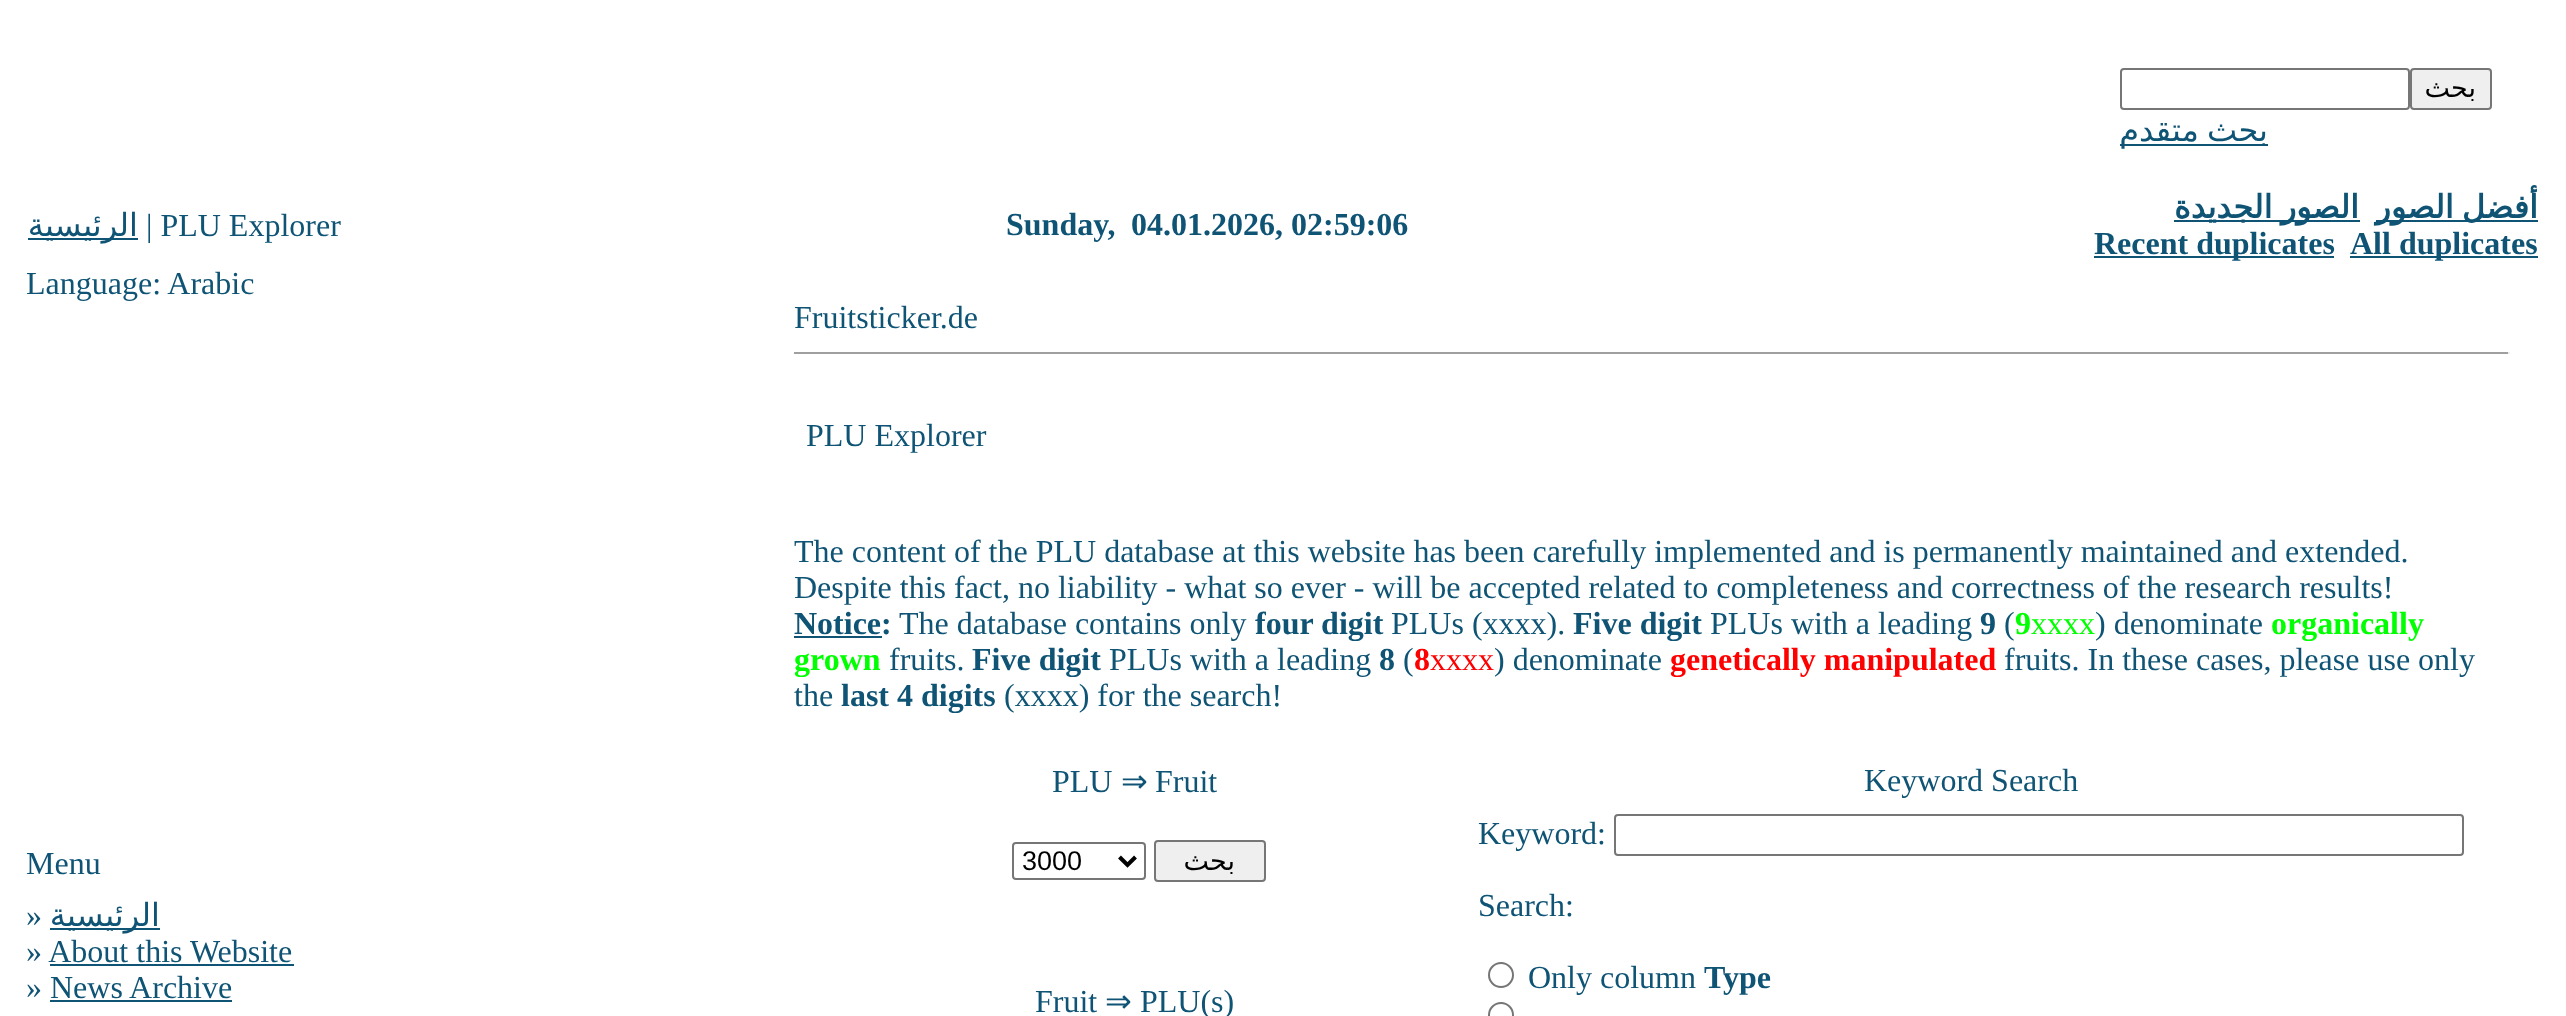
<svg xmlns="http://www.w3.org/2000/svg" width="2566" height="1016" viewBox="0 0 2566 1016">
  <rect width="100%" height="100%" fill="rgb(255,255,255)"/>
  <rect x="2121" y="69" width="288" height="40" rx="3" fill="none" stroke="rgb(118,118,118)" stroke-width="2"/>
  <rect x="2411" y="69" width="80" height="40" rx="3" fill="rgb(239,239,239)" stroke="rgb(118,118,118)" stroke-width="2"/>
  <text x="2476" y="97" font-family="DejaVu Sans" font-size="27" direction="rtl" fill="rgb(0,0,0)">بحث</text>
  <rect x="2120" y="144" width="148" height="2" fill="rgb(15,84,117)"/>
  <text x="2268" y="141" word-spacing="-2" font-family="DejaVu Sans" font-size="32" direction="rtl" fill="rgb(15,84,117)">بحث متقدم</text>
  <rect x="28" y="238" width="110" height="2" fill="rgb(15,84,117)"/>
  <text x="138" y="236" font-family="DejaVu Sans" font-size="32" direction="rtl" fill="rgb(15,84,117)">الرئيسية</text>
  <text x="146" y="236" font-family="Liberation Serif" font-size="32" fill="rgb(15,84,117)">| PLU Explorer</text>
  <g font-family="Liberation Serif" font-size="32" font-weight="bold" fill="rgb(15,84,117)">
    <text x="1006" y="235">Sunday,</text>
    <text x="1131" y="235">04.01.2026, 02:59:06</text>
  </g>
  <rect x="2174" y="220" width="186" height="2" fill="rgb(15,84,117)"/>
  <text x="2359" y="218" word-spacing="-2" font-family="DejaVu Sans" font-size="32" font-weight="bold" direction="rtl" fill="rgb(15,84,117)">الصور الجديدة</text>
  <rect x="2376" y="220" width="162" height="2" fill="rgb(15,84,117)"/>
  <text x="2538" y="218" word-spacing="-2" font-family="DejaVu Sans" font-size="32" font-weight="bold" direction="rtl" fill="rgb(15,84,117)">أفضل الصور</text>
  <rect x="2094" y="256" width="240" height="2" fill="rgb(15,84,117)"/>
  <text x="2094" y="254" font-family="Liberation Serif" font-size="32" font-weight="bold" fill="rgb(15,84,117)">Recent duplicates</text>
  <rect x="2350" y="256" width="188" height="2" fill="rgb(15,84,117)"/>
  <text x="2350" y="254" font-family="Liberation Serif" font-size="32" font-weight="bold" fill="rgb(15,84,117)">All duplicates</text>
  <g font-family="Liberation Serif" font-size="32" fill="rgb(15,84,117)">
    <text x="26" y="294">Language: Arabic</text>
    <text>
      <tspan x="26" y="874">Menu</tspan>
      <tspan x="26" y="926">»</tspan>
    </text>
  </g>
  <rect x="50" y="928" width="110" height="2" fill="rgb(15,84,117)"/>
  <text x="160" y="926" font-family="DejaVu Sans" font-size="32" direction="rtl" fill="rgb(15,84,117)">الرئيسية</text>
  <text x="26" y="962" font-family="Liberation Serif" font-size="32" fill="rgb(15,84,117)">» About this Website</text>
  <rect x="50" y="964" width="244" height="2" fill="rgb(15,84,117)"/>
  <text x="26" y="998" font-family="Liberation Serif" font-size="32" fill="rgb(15,84,117)">» News Archive</text>
  <rect x="50" y="1000" width="182" height="2" fill="rgb(15,84,117)"/>
  <text x="794" y="328" font-family="Liberation Serif" font-size="32" fill="rgb(15,84,117)">Fruitsticker.de</text>
  <rect x="794" y="352" width="1716" height="2" fill="rgb(159,159,159)"/>
  <rect x="2508" y="352" width="2" height="2" fill="rgb(238,238,238)"/>
  <g font-family="Liberation Serif" font-size="32" fill="rgb(15,84,117)">
    <text x="806" y="446">PLU Explorer</text>
    <text>
      <tspan x="794" y="562">The content of the PLU database at this website has been carefully implemented and is permanently maintained and extended.</tspan>
      <tspan x="794" y="598">Despite this fact, no liability - what so ever - will be accepted related to completeness and correctness of the research results!</tspan>
    </text>
  </g>
  <text x="794" y="634" font-family="Liberation Serif" font-size="32" font-weight="bold" fill="rgb(15,84,117)">Notice:</text>
  <rect x="794" y="636" width="88" height="2" fill="rgb(15,84,117)"/>
  <text x="899" y="634" font-family="Liberation Serif" font-size="32" fill="rgb(15,84,117)">The database contains only</text>
  <text x="1255" y="634" font-family="Liberation Serif" font-size="32" font-weight="bold" fill="rgb(15,84,117)">four digit</text>
  <text x="1391" y="634" font-family="Liberation Serif" font-size="32" fill="rgb(15,84,117)">PLUs (xxxx).</text>
  <text x="1573" y="634" font-family="Liberation Serif" font-size="32" font-weight="bold" fill="rgb(15,84,117)">Five digit</text>
  <text x="1710" y="634" font-family="Liberation Serif" font-size="32" fill="rgb(15,84,117)">PLUs with a leading</text>
  <text x="1980" y="634" font-family="Liberation Serif" font-size="32" font-weight="bold" fill="rgb(15,84,117)">9</text>
  <text x="2004" y="634" font-family="Liberation Serif" font-size="32" fill="rgb(15,84,117)">(</text>
  <text x="2015" y="634" font-family="Liberation Serif" font-size="32" font-weight="bold" fill="rgb(0,255,0)">9</text>
  <text x="2031" y="634" font-family="Liberation Serif" font-size="32" fill="rgb(0,255,0)">xxxx</text>
  <text x="2095" y="634" font-family="Liberation Serif" font-size="32" fill="rgb(15,84,117)">) denominate</text>
  <g font-family="Liberation Serif" font-size="32" font-weight="bold" fill="rgb(0,255,0)">
    <text x="2271" y="634">organically</text>
    <text x="794" y="670">grown</text>
  </g>
  <text x="889" y="670" font-family="Liberation Serif" font-size="32" fill="rgb(15,84,117)">fruits.</text>
  <text x="972" y="670" font-family="Liberation Serif" font-size="32" font-weight="bold" fill="rgb(15,84,117)">Five digit</text>
  <text x="1109" y="670" font-family="Liberation Serif" font-size="32" fill="rgb(15,84,117)">PLUs with a leading</text>
  <text x="1379" y="670" font-family="Liberation Serif" font-size="32" font-weight="bold" fill="rgb(15,84,117)">8</text>
  <text x="1403" y="670" font-family="Liberation Serif" font-size="32" fill="rgb(15,84,117)">(</text>
  <text x="1414" y="670" font-family="Liberation Serif" font-size="32" font-weight="bold" fill="rgb(255,0,0)">8</text>
  <text x="1430" y="670" font-family="Liberation Serif" font-size="32" fill="rgb(255,0,0)">xxxx</text>
  <text x="1494" y="670" font-family="Liberation Serif" font-size="32" fill="rgb(15,84,117)">) denominate</text>
  <text x="1670" y="670" font-family="Liberation Serif" font-size="32" font-weight="bold" fill="rgb(255,0,0)">genetically manipulated</text>
  <g font-family="Liberation Serif" font-size="32" fill="rgb(15,84,117)">
    <text x="2004" y="670">fruits. In these cases, please use only</text>
    <text x="794" y="706">the</text>
  </g>
  <text x="841" y="706" font-family="Liberation Serif" font-size="32" font-weight="bold" fill="rgb(15,84,117)">last 4 digits</text>
  <g font-family="Liberation Serif" font-size="32" fill="rgb(15,84,117)">
    <text x="1004" y="706">(xxxx) for the search!</text>
    <text x="1052" y="792">PLU</text>
  </g>
  <text x="1121" y="792" font-family="DejaVu Sans" font-size="32" fill="rgb(15,84,117)">⇒</text>
  <g font-family="Liberation Serif" font-size="32" fill="rgb(15,84,117)">
    <text x="1155" y="792">Fruit</text>
    <text x="1864" y="791">Keyword Search</text>
  </g>
  <rect x="1013" y="843" width="132" height="36" rx="3" fill="none" stroke="rgb(118,118,118)" stroke-width="2"/>
  <path d="M1119.5 857L1127.5 865L1135.5 857" fill="none" stroke="rgb(0,0,0)" stroke-width="4"/>
  <text x="1022" y="870" font-family="Liberation Sans" font-size="27" fill="rgb(0,0,0)">3000</text>
  <rect x="1155" y="841" width="110" height="40" rx="3" fill="rgb(239,239,239)" stroke="rgb(118,118,118)" stroke-width="2"/>
  <text x="1235" y="870" font-family="DejaVu Sans" font-size="27" direction="rtl" fill="rgb(0,0,0)">بحث</text>
  <text x="1478" y="844" font-family="Liberation Serif" font-size="32" fill="rgb(15,84,117)">Keyword:</text>
  <rect x="1615" y="815" width="848" height="40" rx="3" fill="none" stroke="rgb(118,118,118)" stroke-width="2"/>
  <text x="1478" y="916" font-family="Liberation Serif" font-size="32" fill="rgb(15,84,117)">Search:</text>
  <circle cx="1501" cy="975" r="12" fill="none" stroke="rgb(118,118,118)" stroke-width="2"/>
  <text x="1528" y="988" font-family="Liberation Serif" font-size="32" fill="rgb(15,84,117)">Only column</text>
  <text x="1704" y="988" font-family="Liberation Serif" font-size="32" font-weight="bold" fill="rgb(15,84,117)">Type</text>
  <circle cx="1501" cy="1015" r="12" fill="none" stroke="rgb(118,118,118)" stroke-width="2"/>
  <text x="1035" y="1012" font-family="Liberation Serif" font-size="32" fill="rgb(15,84,117)">Fruit</text>
  <text x="1105" y="1012" font-family="DejaVu Sans" font-size="32" fill="rgb(15,84,117)">⇒</text>
  <text x="1140" y="1012" font-family="Liberation Serif" font-size="32" fill="rgb(15,84,117)">PLU(s)</text>
</svg>
